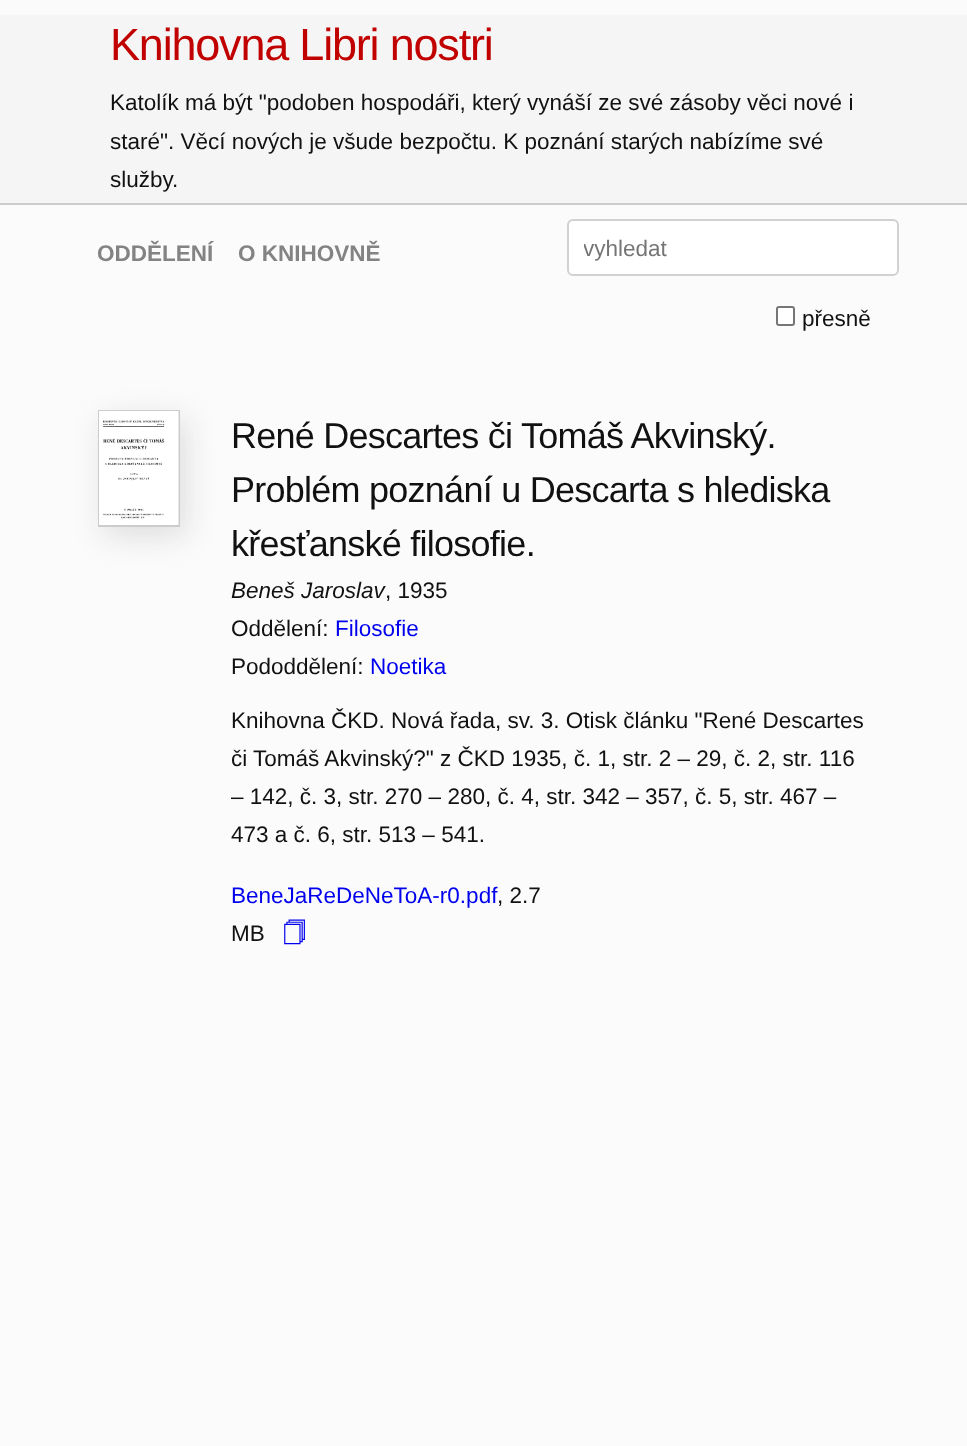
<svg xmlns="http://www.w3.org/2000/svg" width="967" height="1446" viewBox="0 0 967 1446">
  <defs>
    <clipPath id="clip1"><rect x="584" y="236" width="298" height="25"/></clipPath>
  </defs>
  <rect width="100%" height="100%" fill="rgb(251,251,251)"/>
  <rect x="0" y="15" width="967" height="188" fill="rgb(245,245,245)"/>
  <rect x="0" y="203" width="967" height="2" fill="rgb(204,204,204)"/>
  <text x="110" y="60" font-family="Liberation Sans" font-size="45" letter-spacing="-1.2" fill="rgb(193,0,0)">Knihovna Libri nostri</text>
  <g font-family="Liberation Sans" font-size="22.5" fill="rgb(17,17,17)">
    <text>
      <tspan x="110" y="110">Katolík má být "podoben hospodáři, který vynáší ze své zásoby věci nové i</tspan>
      <tspan x="110" y="149">staré". Věcí nových je všude bezpočtu. K poznání starých nabízíme své</tspan>
      <tspan x="110" y="187">služby.</tspan>
    </text>
  </g>
  <g font-family="Liberation Sans" font-size="22.5" font-weight="bold" fill="rgb(131,131,131)">
    <text x="97" y="261">ODDĚLENÍ</text>
    <text x="238" y="261">O KNIHOVNĚ</text>
  </g>
  <rect x="568" y="220" width="330" height="55" rx="5" fill="rgb(255,255,255)" stroke="rgb(209,209,209)" stroke-width="2"/>
  <g clip-path="url(#clip1)">
    <text x="583" y="256" font-family="Liberation Sans" font-size="22.5" fill="rgb(117,117,117)">vyhledat</text>
  </g>
  <rect x="777" y="307" width="17" height="18" rx="2" fill="rgb(255,255,255)" stroke="rgb(118,118,118)" stroke-width="2"/>
  <text x="802" y="326" font-family="Liberation Sans" font-size="22.5" fill="rgb(17,17,17)">přesně</text>
  <rect x="104" y="419" width="82" height="117" fill="rgb(221,221,221)" filter="blur(15px)"/>
  <rect x="99" y="411" width="80" height="115" fill="none" stroke="rgb(204,204,204)" stroke-width="2"/>
  <image x="99" y="411" width="80" height="114" href="pic1.png"/>
  <g font-family="Liberation Sans" font-size="36" letter-spacing="-0.75" fill="rgb(17,17,17)">
    <text>
      <tspan x="231" y="448">René Descartes či Tomáš Akvinský.</tspan>
      <tspan x="231" y="502">Problém poznání u Descarta s hlediska</tspan>
      <tspan x="231" y="556">křesťanské filosofie.</tspan>
    </text>
  </g>
  <text x="231" y="598" font-family="Liberation Sans" font-size="22.5" font-style="italic" fill="rgb(17,17,17)">Beneš Jaroslav</text>
  <g font-family="Liberation Sans" font-size="22.5" fill="rgb(17,17,17)">
    <text x="385" y="598">, 1935</text>
    <text x="231" y="636">Oddělení:</text>
  </g>
  <text x="335" y="636" font-family="Liberation Sans" font-size="22.5" fill="rgb(0,0,238)">Filosofie</text>
  <text x="231" y="674" font-family="Liberation Sans" font-size="22.5" fill="rgb(17,17,17)">Pododdělení:</text>
  <text x="370" y="674" font-family="Liberation Sans" font-size="22.5" fill="rgb(0,0,238)">Noetika</text>
  <g font-family="Liberation Sans" font-size="22.5" fill="rgb(17,17,17)">
    <text>
      <tspan x="231" y="728">Knihovna ČKD. Nová řada, sv. 3. Otisk článku "René Descartes</tspan>
      <tspan x="231" y="766">či Tomáš Akvinský?" z ČKD 1935, č. 1, str. 2 – 29, č. 2, str. 116</tspan>
      <tspan x="231" y="804">– 142, č. 3, str. 270 – 280, č. 4, str. 342 – 357, č. 5, str. 467 –</tspan>
      <tspan x="231" y="842">473 a č. 6, str. 513 – 541.</tspan>
    </text>
  </g>
  <text x="231" y="903" font-family="Liberation Sans" font-size="22.5" fill="rgb(0,0,238)">BeneJaReDeNeToA-r0.pdf</text>
  <g font-family="Liberation Sans" font-size="22.5" fill="rgb(17,17,17)">
    <text x="497" y="903">, 2.7</text>
    <text x="231" y="941">MB</text>
  </g>
  <text x="283" y="941" font-family="'Noto Sans Symbols 2'" font-size="22.5" font-weight="bold" fill="rgb(0,0,238)">🗍</text>
</svg>
